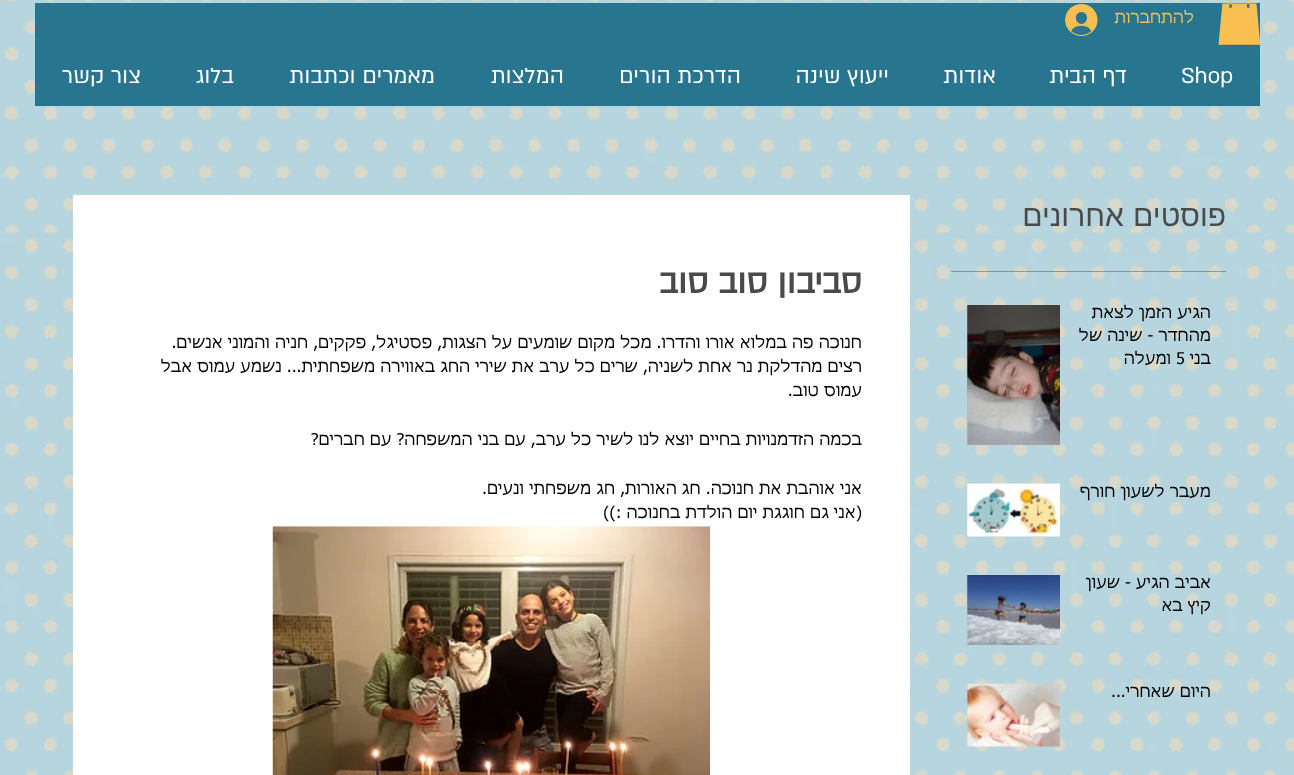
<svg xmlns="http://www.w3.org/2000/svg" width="1294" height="775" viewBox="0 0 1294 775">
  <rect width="100%" height="100%" fill="rgb(255,255,255)"/>
  <image x="0" y="0" width="1294" height="775" href="pic1.png"/>
  <rect x="35" y="3" width="1225" height="103" fill="rgb(39,117,142)"/>
  <image x="1218" y="0" width="43" height="45" href="pic2.png"/>
  <text x="1194" y="23" font-family="tahoma" font-size="16.25" direction="rtl" fill="rgb(249,191,81)">להתחברות</text>
  <image x="1065" y="4" width="33" height="32" href="pic3.png"/>
  <text x="1181" y="83" font-family="'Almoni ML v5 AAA'" font-size="25" fill="rgb(255,255,255)">Shop</text>
  <g font-family="'Almoni ML v5 AAA'" font-size="25" direction="rtl" fill="rgb(255,255,255)">
    <text x="1127" y="83">דף הבית</text>
    <text x="996" y="83">אודות</text>
    <text x="889" y="83">ייעוץ שינה</text>
    <text x="741" y="83">הדרכת הורים</text>
    <text x="564" y="83">המלצות</text>
    <text x="435" y="83">מאמרים וכתבות</text>
    <text x="234" y="83">בלוג</text>
    <text x="141" y="83">צור קשר</text>
  </g>
  <text x="1226" y="226" word-spacing="1" font-family="Liberation Sans" font-size="30" direction="rtl" fill="rgb(74,74,74)">פוסטים אחרונים</text>
  <rect x="951" y="271" width="275" height="1" fill="rgba(0,0,0,0.3)"/>
  <g font-family="tahoma" font-size="16.25" direction="rtl" fill="rgb(0,0,0)">
    <text>
      <tspan x="1211" y="318">הגיע הזמן לצאת</tspan>
      <tspan x="1211" y="341">מהחדר - שינה של</tspan>
      <tspan x="1211" y="364">בני</tspan>
    </text>
  </g>
  <text x="1176" y="364" font-family="tahoma" font-size="16.25" fill="rgb(0,0,0)">5</text>
  <text x="1171" y="364" font-family="tahoma" font-size="16.25" direction="rtl" fill="rgb(0,0,0)">ומעלה</text>
  <image x="967" y="305" width="1" height="140" href="pic4.png"/>
  <image x="967" y="305" width="93" height="140" href="pic5.png"/>
  <text x="1211" y="497" font-family="tahoma" font-size="16.25" direction="rtl" fill="rgb(0,0,0)">מעבר לשעון חורף</text>
  <image x="967" y="483" width="93" height="54" href="pic6.png"/>
  <image x="967" y="483" width="93" height="54" href="pic7.png"/>
  <g font-family="tahoma" font-size="16.25" direction="rtl" fill="rgb(0,0,0)">
    <text>
      <tspan x="1211" y="588">אביב הגיע - שעון</tspan>
      <tspan x="1211" y="611">קיץ בא</tspan>
    </text>
  </g>
  <image x="967" y="575" width="1" height="70" href="pic8.png"/>
  <image x="967" y="575" width="93" height="70" href="pic9.png"/>
  <text x="1211" y="697" font-family="tahoma" font-size="16.25" direction="rtl" fill="rgb(0,0,0)">היום שאחרי...</text>
  <image x="967" y="683" width="93" height="64" href="pic10.png"/>
  <image x="967" y="683" width="93" height="64" href="pic11.png"/>
  <rect x="73" y="195" width="837" height="580" fill="rgb(255,255,255)"/>
  <text x="862" y="293" font-family="'Almoni ML v5 AAA'" font-size="37.5" font-weight="bold" direction="rtl" fill="rgb(74,74,74)">סביבון סוב סוב</text>
  <g font-family="tahoma" font-size="16.25" direction="rtl" fill="rgb(0,0,0)">
    <text>
      <tspan x="862" y="348">חנוכה פה במלוא אורו והדרו. מכל מקום שומעים על הצגות, פסטיגל, פקקים, חניה והמוני אנשים.</tspan>
      <tspan x="862" y="372">רצים מהדלקת נר אחת לשניה, שרים כל ערב את שירי החג באווירה משפחתית... נשמע עמוס אבל</tspan>
      <tspan x="862" y="396">עמוס טוב.</tspan>
    </text>
    <text x="862" y="445">בכמה הזדמנויות בחיים יוצא לנו לשיר כל ערב, עם בני המשפחה? עם חברים?</text>
    <text>
      <tspan x="862" y="494">אני אוהבת את חנוכה. חג האורות, חג משפחתי ונעים.</tspan>
      <tspan x="862" y="518">(אני גם חוגגת יום הולדת בחנוכה :))</tspan>
    </text>
  </g>
  <image x="272" y="526" width="438" height="249" href="pic12.png"/>
</svg>
